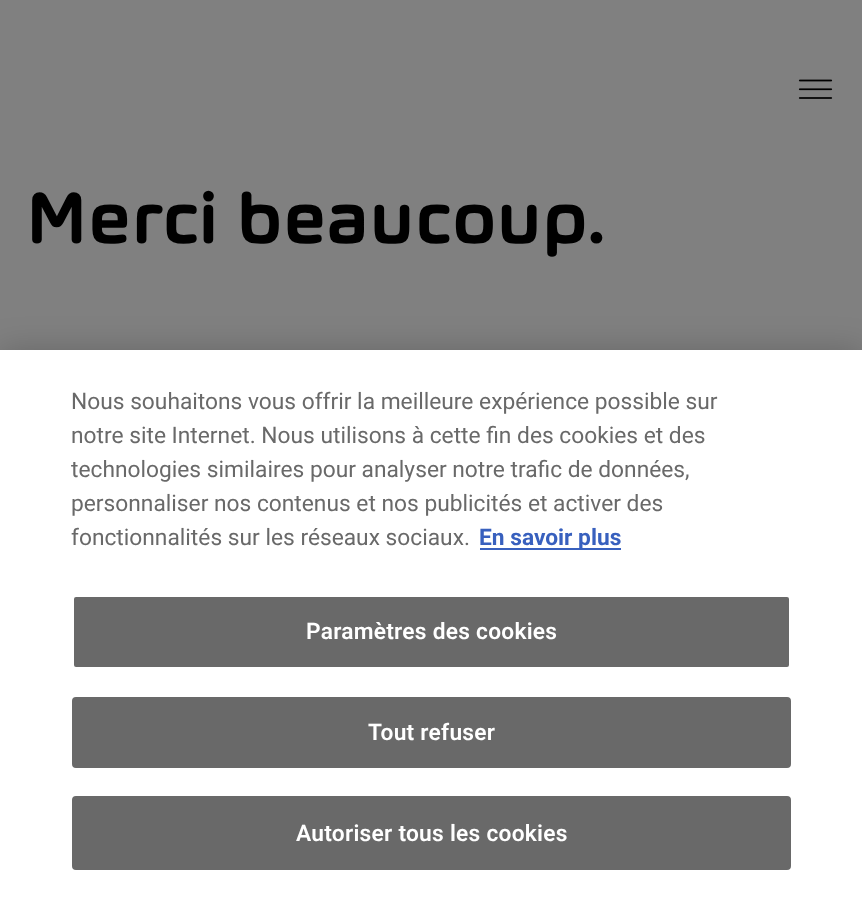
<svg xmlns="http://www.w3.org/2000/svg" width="862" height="897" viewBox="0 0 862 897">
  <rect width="100%" height="100%" fill="rgb(128,128,128)"/>
  <image x="798" y="79" width="35" height="20" href="pic1.png"/>
  <text x="26" y="243" font-family="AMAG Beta" font-size="77" font-weight="bold" fill="rgb(0,0,0)">Merci beaucoup.</text>
  <rect x="0" y="350" width="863" height="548" fill="rgba(0,0,0,0.2)" filter="blur(16px)"/>
  <rect x="0" y="350" width="862" height="547" fill="rgb(255,255,255)"/>
  <g font-family="Roboto" font-size="22.75" fill="rgb(105,105,105)">
    <text>
      <tspan x="71" y="409">Nous souhaitons vous offrir la meilleure expérience possible sur</tspan>
      <tspan x="71" y="443">notre site Internet. Nous utilisons à cette fin des cookies et des</tspan>
      <tspan x="71" y="477">technologies similaires pour analyser notre trafic de données,</tspan>
      <tspan x="71" y="511">personnaliser nos contenus et nos publicités et activer des</tspan>
      <tspan x="71" y="545">fonctionnalités sur les réseaux sociaux.</tspan>
    </text>
  </g>
  <rect x="480" y="548" width="141" height="2" fill="rgb(56,96,190)"/>
  <text x="479" y="545" font-family="Roboto" font-size="22.75" font-weight="bold" fill="rgb(56,96,190)">En savoir plus</text>
  <rect x="73" y="596" width="717" height="72" rx="3" fill="rgb(105,105,105)" stroke="rgb(255,255,255)" stroke-width="2"/>
  <text x="306" y="639" font-family="Roboto" font-size="22.75" font-weight="600" letter-spacing="0.25" fill="rgb(255,255,255)">Paramètres des cookies</text>
  <rect x="73" y="698" width="717" height="69" rx="3" fill="rgb(105,105,105)" stroke="rgb(105,105,105)" stroke-width="2"/>
  <text x="368" y="740" font-family="Roboto" font-size="22.75" font-weight="600" letter-spacing="0.25" fill="rgb(255,255,255)">Tout refuser</text>
  <rect x="73" y="797" width="717" height="72" rx="3" fill="rgb(105,105,105)" stroke="rgb(105,105,105)" stroke-width="2"/>
  <text x="296" y="841" font-family="Roboto" font-size="22.75" font-weight="600" letter-spacing="0.25" fill="rgb(255,255,255)">Autoriser tous les cookies</text>
</svg>
